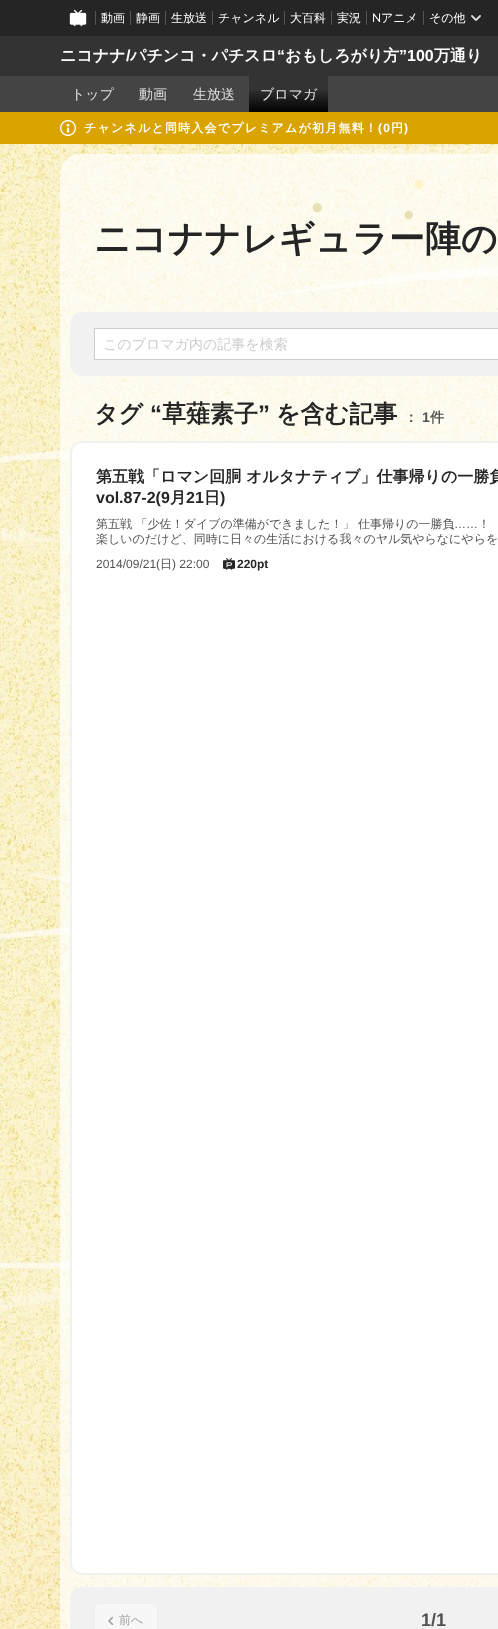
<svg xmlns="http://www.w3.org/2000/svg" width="498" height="1629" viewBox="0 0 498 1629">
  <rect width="100%" height="100%" fill="rgb(255,255,255)"/>
  <rect x="0" y="0" width="498" height="36" fill="rgb(37,37,37)"/>
  <image x="69" y="9" width="18" height="18" href="pic1.png"/>
  <rect x="95" y="11" width="1" height="14" fill="rgb(85,85,85)"/>
  <text x="101" y="22" font-family="WenQuanYi Zen Hei" font-size="12" font-weight="500" fill="rgb(255,255,255)">動画</text>
  <rect x="130" y="11" width="1" height="14" fill="rgb(85,85,85)"/>
  <text x="136" y="22" font-family="WenQuanYi Zen Hei" font-size="12" font-weight="500" fill="rgb(255,255,255)">静画</text>
  <rect x="165" y="11" width="1" height="14" fill="rgb(85,85,85)"/>
  <text x="171" y="22" font-family="WenQuanYi Zen Hei" font-size="12" font-weight="500" fill="rgb(255,255,255)">生放送</text>
  <rect x="212" y="11" width="1" height="14" fill="rgb(85,85,85)"/>
  <text x="218" y="22" font-family="WenQuanYi Zen Hei" font-size="12" font-weight="500" fill="rgb(255,255,255)">チャンネル</text>
  <rect x="284" y="11" width="1" height="14" fill="rgb(85,85,85)"/>
  <text x="290" y="22" font-family="WenQuanYi Zen Hei" font-size="12" font-weight="500" fill="rgb(255,255,255)">大百科</text>
  <rect x="331" y="11" width="1" height="14" fill="rgb(85,85,85)"/>
  <text x="337" y="22" font-family="WenQuanYi Zen Hei" font-size="12" font-weight="500" fill="rgb(255,255,255)">実況</text>
  <rect x="366" y="11" width="1" height="14" fill="rgb(85,85,85)"/>
  <text x="372" y="22" font-family="Lato" font-size="12" fill="rgb(255,255,255)">N</text>
  <text x="381" y="22" font-family="WenQuanYi Zen Hei" font-size="12" font-weight="500" fill="rgb(255,255,255)">アニメ</text>
  <rect x="423" y="11" width="1" height="14" fill="rgb(85,85,85)"/>
  <text x="429" y="22" font-family="WenQuanYi Zen Hei" font-size="12" font-weight="500" fill="rgb(255,255,255)">その他</text>
  <image x="471" y="15" width="10" height="6" href="pic2.png"/>
  <rect x="0" y="36" width="498" height="40" fill="rgb(51,51,51)"/>
  <text x="60" y="61" font-family="WenQuanYi Zen Hei" font-size="16" font-weight="bold" fill="rgb(255,255,255)">ニコナナ</text>
  <text x="126" y="61" font-family="Liberation Sans" font-size="16" font-weight="bold" fill="rgb(255,255,255)">/</text>
  <text x="130" y="61" font-family="WenQuanYi Zen Hei" font-size="16" font-weight="bold" fill="rgb(255,255,255)">パチンコ・パチスロ</text>
  <text x="277" y="61" font-family="Liberation Sans" font-size="16" font-weight="bold" fill="rgb(255,255,255)">“</text>
  <text x="285" y="61" font-family="WenQuanYi Zen Hei" font-size="16" font-weight="bold" fill="rgb(255,255,255)">おもしろがり方</text>
  <text x="399" y="61" font-family="Liberation Sans" font-size="16" font-weight="bold" fill="rgb(255,255,255)">”100</text>
  <text x="434" y="61" font-family="WenQuanYi Zen Hei" font-size="16" font-weight="bold" fill="rgb(255,255,255)">万通り</text>
  <rect x="0" y="76" width="498" height="36" fill="rgb(68,68,68)"/>
  <g font-family="WenQuanYi Zen Hei" font-size="14" font-weight="500" fill="rgb(224,224,224)">
    <text x="71" y="99">トップ</text>
    <text x="139" y="99">動画</text>
    <text x="193" y="99">生放送</text>
  </g>
  <rect x="249" y="76" width="79" height="36" fill="rgb(51,51,51)"/>
  <image x="249" y="90" width="79" height="22" href="pic3.png"/>
  <text x="260" y="99" font-family="WenQuanYi Zen Hei" font-size="14" font-weight="500" fill="rgb(224,224,224)">ブロマガ</text>
  <rect x="0" y="112" width="498" height="32" fill="rgb(217,163,0)"/>
  <image x="60" y="120" width="16" height="16" href="pic4.png"/>
  <text x="84" y="132" font-family="WenQuanYi Zen Hei" font-size="12" font-weight="bold" letter-spacing="1.2" fill="rgb(255,255,255)">チャンネルと同時入会でプレミアムが初月無料！</text>
  <text x="378" y="132" font-family="Liberation Sans" font-size="12" font-weight="bold" letter-spacing="1.2" fill="rgb(255,255,255)">(0</text>
  <text x="391" y="132" font-family="WenQuanYi Zen Hei" font-size="12" font-weight="bold" letter-spacing="1.2" fill="rgb(255,255,255)">円</text>
  <text x="404" y="132" font-family="Liberation Sans" font-size="12" font-weight="bold" letter-spacing="1.2" fill="rgb(255,255,255)">)</text>
  <image x="0" y="144" width="498" height="1485" href="pic5.png"/>
  <rect x="60" y="154" width="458" height="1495" rx="20" fill="rgba(255,255,255,0.7)"/>
  <text x="94" y="251" font-family="WenQuanYi Zen Hei" font-size="36" font-weight="bold" fill="rgb(37,37,37)">ニコナナレギュラー陣の</text>
  <rect x="70" y="312" width="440" height="64" rx="12" fill="rgb(241,241,241)"/>
  <rect x="94.5" y="328.5" width="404" height="31" fill="rgb(255,255,255)" stroke="rgb(205,205,205)"/>
  <text x="103" y="349" font-family="WenQuanYi Zen Hei" font-size="14" font-weight="500" fill="rgb(205,205,205)">このブロマガ内の記事を検索</text>
  <text x="94" y="422" font-family="WenQuanYi Zen Hei" font-size="24" font-weight="bold" fill="rgb(37,37,37)">タグ</text>
  <text x="150" y="422" font-family="Liberation Sans" font-size="24" font-weight="bold" fill="rgb(37,37,37)">“</text>
  <text x="162" y="422" font-family="WenQuanYi Zen Hei" font-size="24" font-weight="bold" fill="rgb(37,37,37)">草薙素子</text>
  <text x="258" y="422" font-family="Liberation Sans" font-size="24" font-weight="bold" fill="rgb(37,37,37)">”</text>
  <text x="276" y="422" font-family="WenQuanYi Zen Hei" font-size="24" font-weight="bold" fill="rgb(37,37,37)">を含む記事</text>
  <text x="404" y="422" font-family="WenQuanYi Zen Hei" font-size="14" font-weight="bold" fill="rgb(82,82,82)">：</text>
  <text x="422" y="422" font-family="Liberation Sans" font-size="14" font-weight="bold" fill="rgb(82,82,82)">1</text>
  <text x="430" y="422" font-family="WenQuanYi Zen Hei" font-size="14" font-weight="bold" fill="rgb(82,82,82)">件</text>
  <rect x="71" y="442" width="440" height="1132" rx="11" fill="rgb(255,255,255)" stroke="rgb(241,241,241)" stroke-width="2"/>
  <text x="96" y="482" font-family="WenQuanYi Zen Hei" font-size="16" font-weight="bold" fill="rgb(37,37,37)">第五戦「ロマン回胴 オルタナティブ」仕事帰りの一勝負</text>
  <text x="96" y="503" font-family="Liberation Sans" font-size="16" font-weight="bold" fill="rgb(37,37,37)">vol.87-2(9</text>
  <text x="170" y="503" font-family="WenQuanYi Zen Hei" font-size="16" font-weight="bold" fill="rgb(37,37,37)">月</text>
  <text x="186" y="503" font-family="Liberation Sans" font-size="16" font-weight="bold" fill="rgb(37,37,37)">21</text>
  <text x="204" y="503" font-family="WenQuanYi Zen Hei" font-size="16" font-weight="bold" fill="rgb(37,37,37)">日</text>
  <text x="220" y="503" font-family="Liberation Sans" font-size="16" font-weight="bold" fill="rgb(37,37,37)">)</text>
  <text x="96" y="528" font-family="WenQuanYi Zen Hei" font-size="12" font-weight="500" fill="rgb(82,82,82)">第五戦 「少佐！ダイブの準備ができました！」 仕事帰りの一勝負</text>
  <text x="454" y="528" font-family="Liberation Sans" font-size="12" fill="rgb(82,82,82)">……</text>
  <g font-family="WenQuanYi Zen Hei" font-size="12" font-weight="500" fill="rgb(82,82,82)">
    <text x="478" y="528">！</text>
    <text x="96" y="543">楽しいのだけど、同時に日々の生活における我々のヤル気やらなにやらを</text>
  </g>
  <text x="96" y="568" font-family="Liberation Sans" font-size="12" fill="rgb(82,82,82)">2014/09/21(</text>
  <text x="160" y="568" font-family="WenQuanYi Zen Hei" font-size="12" font-weight="500" fill="rgb(82,82,82)">日</text>
  <text x="172" y="568" font-family="Liberation Sans" font-size="12" fill="rgb(82,82,82)">) 22:00</text>
  <image x="223" y="558" width="12" height="12" href="pic6.png"/>
  <text x="237" y="568" font-family="Liberation Sans" font-size="12" font-weight="bold" fill="rgb(37,37,37)">220pt</text>
  <rect x="70" y="1587" width="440" height="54" rx="12" fill="rgb(241,241,241)"/>
  <rect x="94.5" y="1603.5" width="63" height="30" rx="3.5" fill="rgb(247,247,247)" stroke="rgb(238,238,238)"/>
  <image x="108" y="1616" width="6" height="9" href="pic7.png"/>
  <text x="119" y="1624" font-family="WenQuanYi Zen Hei" font-size="12" font-weight="500" fill="rgb(159,159,159)">前へ</text>
  <text x="421" y="1626" font-family="Liberation Sans" font-size="18" font-weight="bold" fill="rgb(82,82,82)">1/1</text>
</svg>
